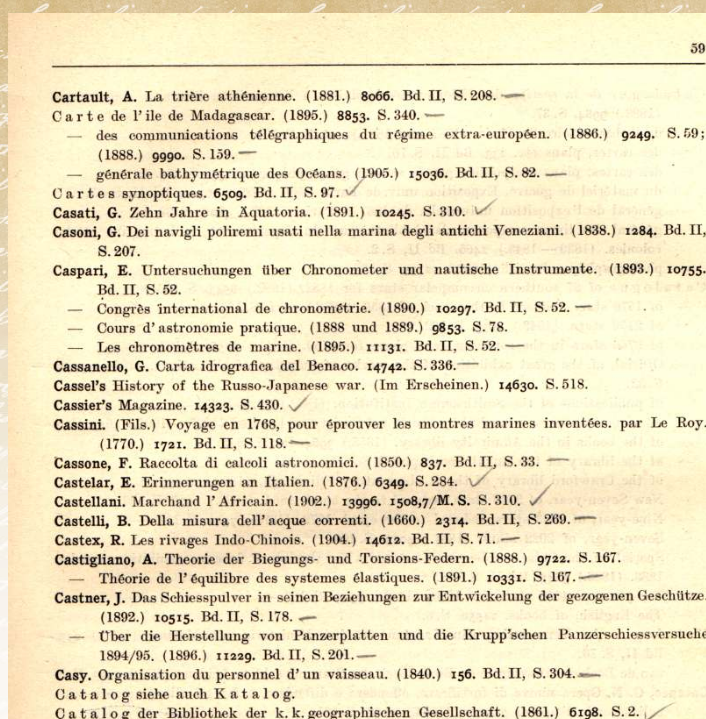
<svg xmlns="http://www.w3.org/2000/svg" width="706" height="719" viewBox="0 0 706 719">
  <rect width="100%" height="100%" fill="rgb(255,255,255)"/>
  <image x="0" y="0" width="706" height="719" href="pic1.png"/>
  <image x="8" y="13" width="698" height="706" href="pic2.png"/>
</svg>
